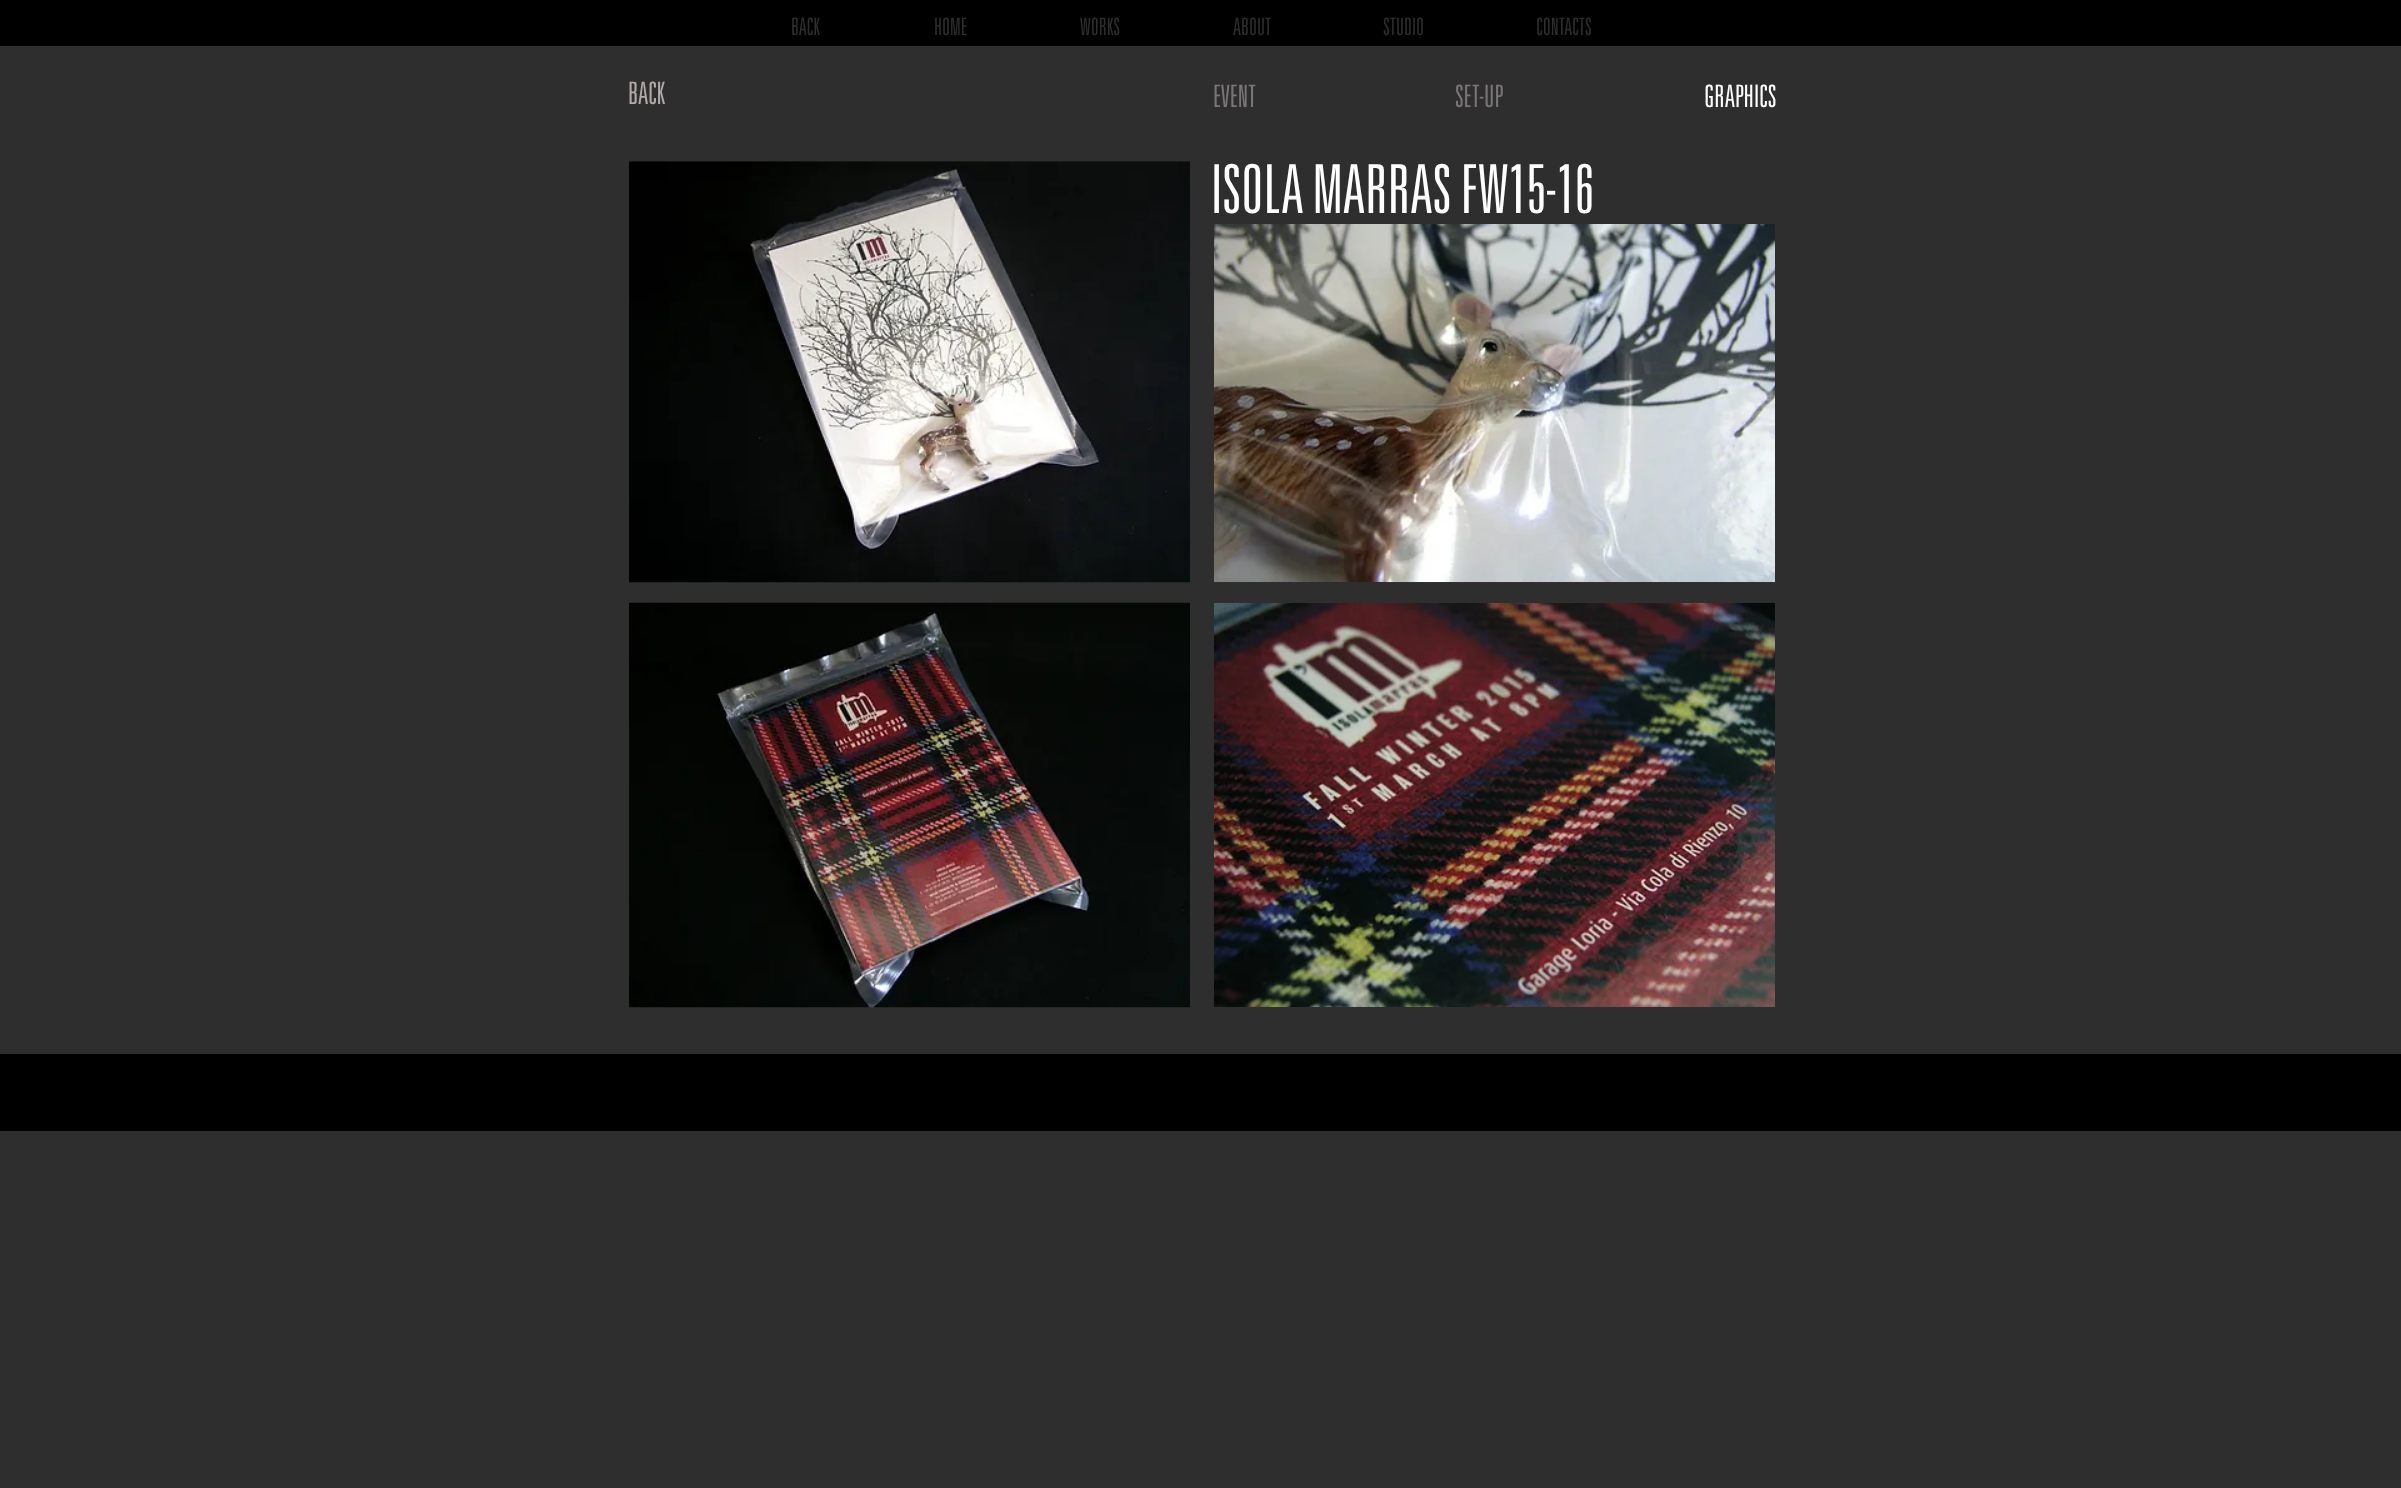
<svg xmlns="http://www.w3.org/2000/svg" width="2401" height="1488" viewBox="0 0 2401 1488">
  <rect width="100%" height="100%" fill="rgb(47,46,46)"/>
  <rect x="0" y="0" width="2401" height="46" fill="rgb(0,0,0)"/>
  <g font-family="Univers" font-size="24" font-weight="300" fill="rgb(47,46,46)">
    <text x="791" y="35">BACK</text>
    <text x="934" y="35">HOME</text>
    <text x="1080" y="35">WORKS</text>
    <text x="1233" y="35">ABOUT</text>
    <text x="1383" y="35">STUDIO</text>
    <text x="1536" y="35">CONTACTS</text>
  </g>
  <text x="628" y="104" font-family="Univers" font-size="31" font-weight="300" fill="rgb(176,170,169)">BACK</text>
  <g font-family="Univers" font-size="31" font-weight="300" fill="rgb(122,118,118)">
    <text x="1213" y="107">EVENT</text>
    <text x="1455" y="107">SET-UP</text>
  </g>
  <text x="1704" y="107" font-family="Univers" font-size="31" font-weight="300" fill="rgb(255,255,255)">GRAPHICS</text>
  <image x="629" y="161" width="561" height="422" href="pic1.png"/>
  <text x="1211" y="213" font-family="Univers" font-size="67.5" font-weight="300" fill="rgb(255,255,255)">ISOLA MARRAS FW15-16</text>
  <image x="1214" y="224" width="561" height="359" href="pic2.png"/>
  <image x="629" y="602" width="561" height="406" href="pic3.png"/>
  <image x="1214" y="603" width="561" height="404" href="pic4.png"/>
  <rect x="0" y="1054" width="2401" height="77" fill="rgb(0,0,0)"/>
</svg>
